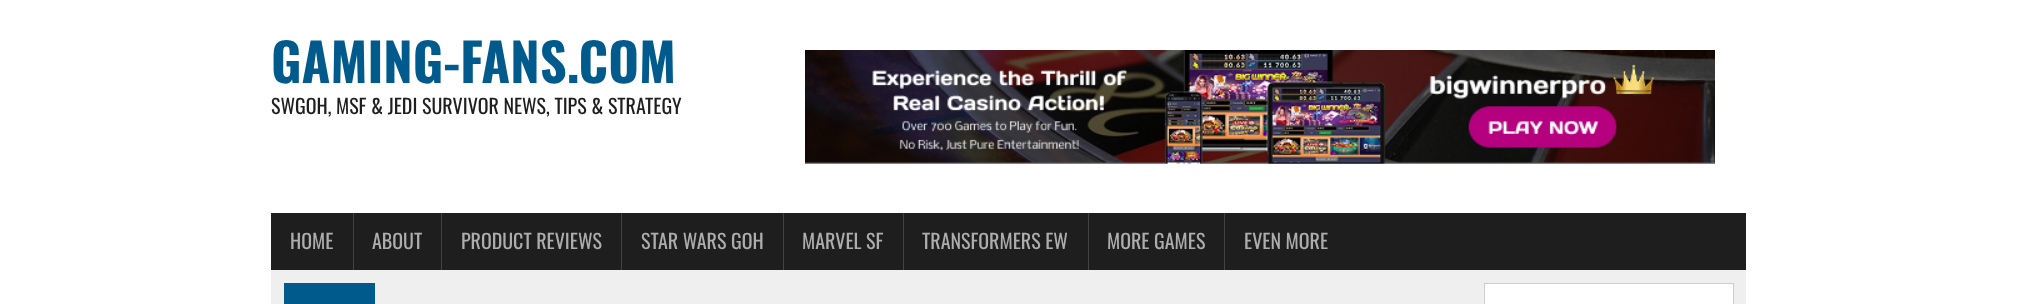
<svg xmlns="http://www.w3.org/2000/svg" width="2017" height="304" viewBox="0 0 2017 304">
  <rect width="100%" height="100%" fill="rgb(255,255,255)"/>
  <text x="271" y="83" font-family="Oswald" font-size="52.5" font-weight="bold" fill="rgb(0,90,140)">GAMING-FANS.COM</text>
  <text x="271" y="114" font-family="Oswald" font-size="20" fill="rgb(31,30,30)">SWGOH, MSF &amp; JEDI SURVIVOR NEWS, TIPS &amp; STRATEGY</text>
  <image x="805" y="50" width="910" height="114" href="pic1.png"/>
  <rect x="271" y="213" width="1475" height="57" fill="rgb(31,30,30)"/>
  <text x="290" y="249" font-family="Oswald" font-size="20" fill="rgb(173,173,173)">HOME</text>
  <rect x="353" y="213" width="1" height="57" fill="rgb(66,66,66)"/>
  <text x="372" y="249" font-family="Oswald" font-size="20" fill="rgb(173,173,173)">ABOUT</text>
  <rect x="441" y="213" width="1" height="57" fill="rgb(66,66,66)"/>
  <text x="461" y="249" font-family="Oswald" font-size="20" fill="rgb(173,173,173)">PRODUCT REVIEWS</text>
  <rect x="621" y="213" width="1" height="57" fill="rgb(66,66,66)"/>
  <text x="641" y="249" font-family="Oswald" font-size="20" fill="rgb(173,173,173)">STAR WARS GOH</text>
  <rect x="783" y="213" width="1" height="57" fill="rgb(66,66,66)"/>
  <text x="802" y="249" font-family="Oswald" font-size="20" fill="rgb(173,173,173)">MARVEL SF</text>
  <rect x="903" y="213" width="1" height="57" fill="rgb(66,66,66)"/>
  <text x="922" y="249" font-family="Oswald" font-size="20" fill="rgb(173,173,173)">TRANSFORMERS EW</text>
  <rect x="1088" y="213" width="1" height="57" fill="rgb(66,66,66)"/>
  <text x="1107" y="249" font-family="Oswald" font-size="20" fill="rgb(173,173,173)">MORE GAMES</text>
  <rect x="1224" y="213" width="1" height="57" fill="rgb(66,66,66)"/>
  <text x="1244" y="249" font-family="Oswald" font-size="20" fill="rgb(173,173,173)">EVEN MORE</text>
  <rect x="271" y="270" width="1475" height="34" fill="rgb(239,239,239)"/>
  <rect x="284" y="283" width="91" height="21" fill="rgb(0,90,140)"/>
  <rect x="1484.5" y="283.5" width="249" height="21" fill="rgb(255,255,255)" stroke="rgb(205,205,205)"/>
</svg>
